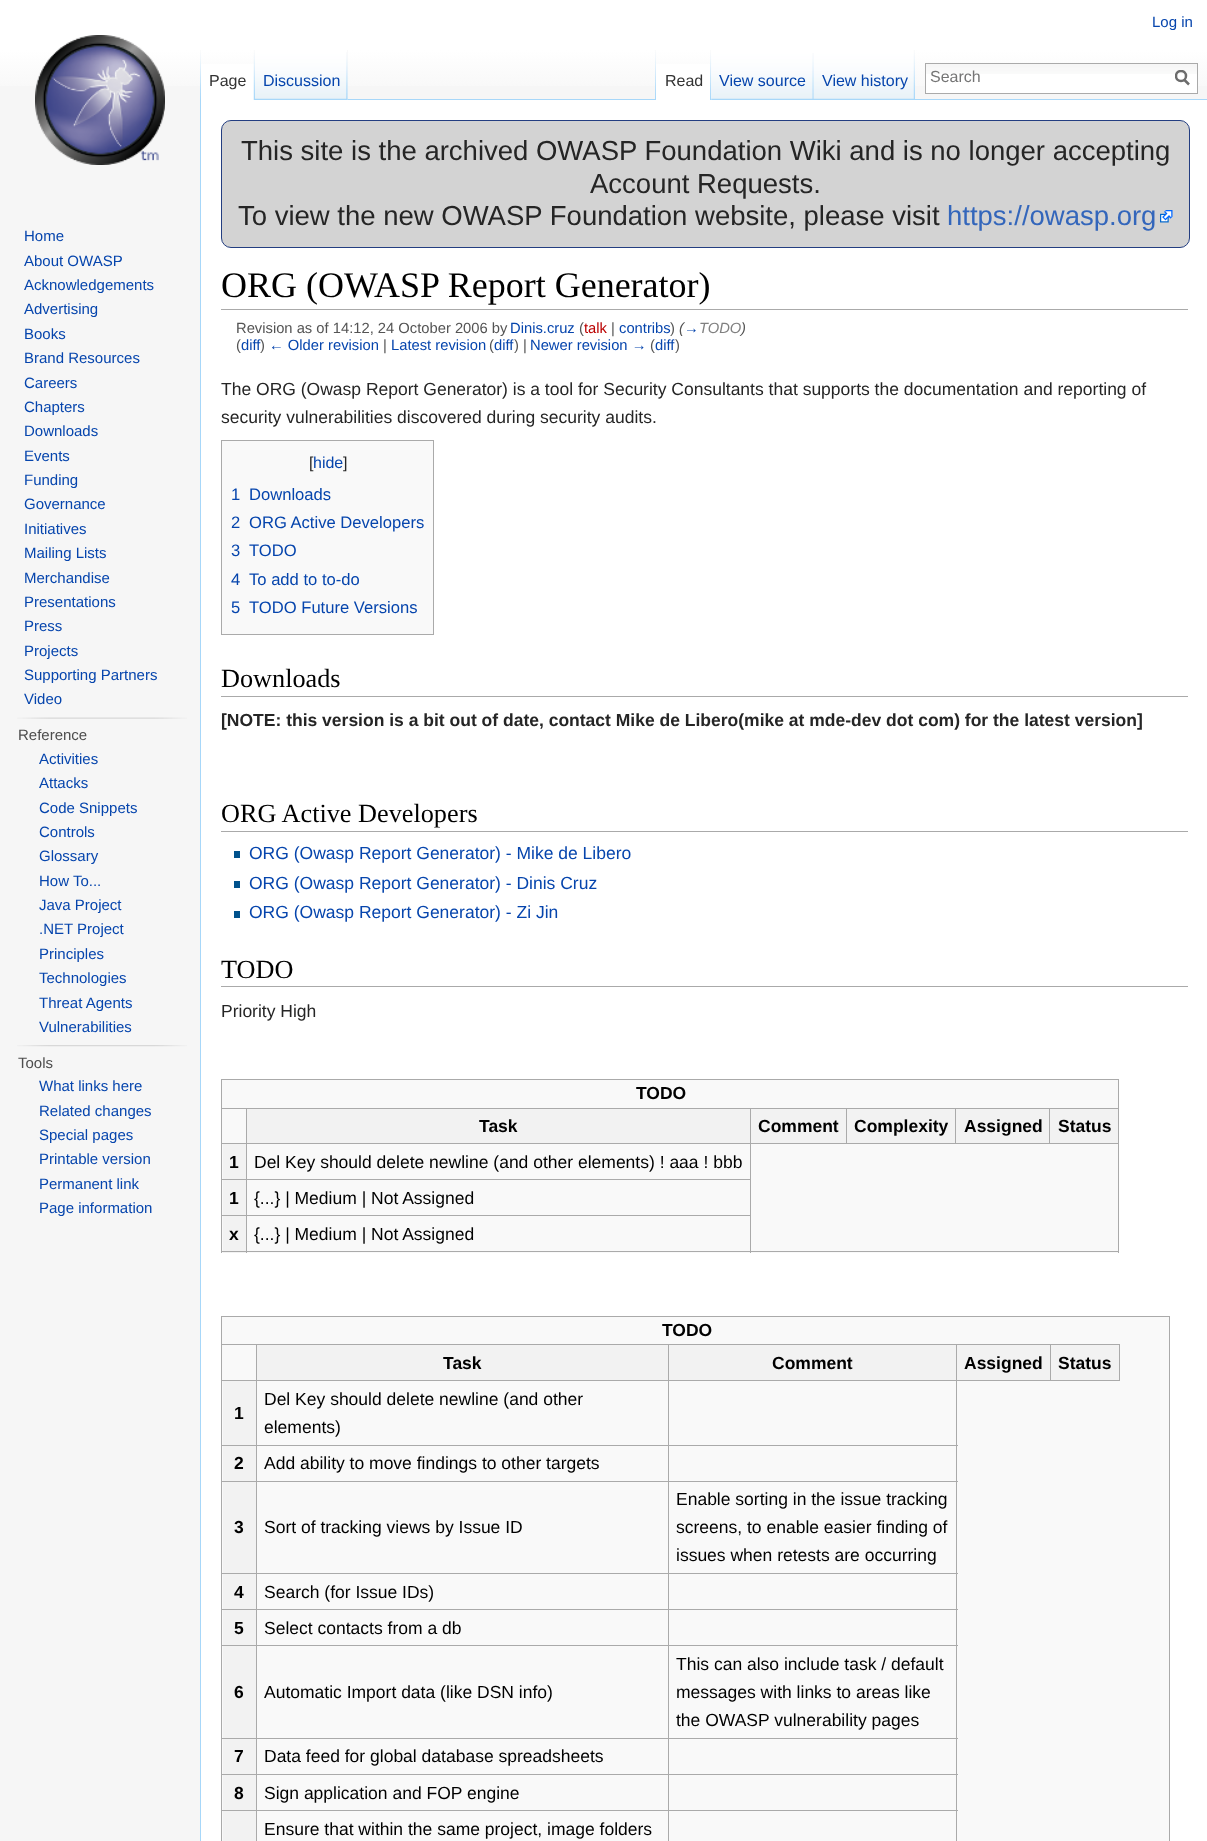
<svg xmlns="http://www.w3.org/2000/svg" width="1207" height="1841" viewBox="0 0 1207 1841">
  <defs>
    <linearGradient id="g1" gradientUnits="userSpaceOnUse" x1="604" y1="0" x2="604" y2="100"><stop offset="0.5" stop-color="rgb(255,255,255)"/><stop offset="1" stop-color="rgb(246,246,246)"/></linearGradient>
    <clipPath id="clip1"><rect x="1175" y="70" width="15" height="16"/></clipPath>
  </defs>
  <rect width="100%" height="100%" fill="rgb(246,246,246)"/>
  <rect x="0" y="0" width="1207" height="86" fill="url(#g1)"/>
  <text x="1152" y="27" font-family="Liberation Sans" font-size="15" fill="rgb(6,69,173)">Log in</text>
  <image x="200" y="50" width="1" height="49" href="pic1.png"/>
  <rect x="201" y="64" width="53" height="36" fill="rgb(255,255,255)"/>
  <image x="253" y="50" width="2" height="50" href="pic2.png"/>
  <text x="209" y="86" font-family="Liberation Sans" font-size="16" fill="rgb(51,51,51)">Page</text>
  <rect x="347" y="50" width="1" height="50" fill="rgb(243,243,243)"/>
  <image x="255" y="50" width="93" height="50" href="pic3.png"/>
  <image x="346" y="52" width="2" height="48" href="pic4.png"/>
  <text x="263" y="86" font-family="Liberation Sans" font-size="16" fill="rgb(6,69,173)">Discussion</text>
  <image x="655" y="50" width="1" height="49" href="pic1.png"/>
  <rect x="348" y="99" width="859" height="1" fill="rgb(167,215,249)"/>
  <rect x="656" y="64" width="56" height="36" fill="rgb(255,255,255)"/>
  <image x="710" y="50" width="2" height="50" href="pic5.png"/>
  <text x="665" y="86" font-family="Liberation Sans" font-size="16" fill="rgb(51,51,51)">Read</text>
  <image x="711" y="50" width="103" height="50" href="pic6.png"/>
  <image x="812" y="53" width="2" height="47" href="pic7.png"/>
  <text x="719" y="86" font-family="Liberation Sans" font-size="16" fill="rgb(6,69,173)">View source</text>
  <image x="813" y="50" width="102" height="50" href="pic8.png"/>
  <image x="913" y="50" width="2" height="49" href="pic9.png"/>
  <text x="822" y="86" font-family="Liberation Sans" font-size="16" fill="rgb(6,69,173)">View history</text>
  <rect x="926" y="74" width="271" height="19" fill="rgb(255,255,255)"/>
  <image x="926" y="64" width="271" height="10" href="pic10.png"/>
  <rect x="925.5" y="63.5" width="272" height="30" fill="none" stroke="rgb(170,170,170)"/>
  <text x="930" y="82" font-family="Liberation Sans" font-size="16" fill="rgb(117,117,117)">Search</text>
  <path d="M1189 84.5L1184 79.5" fill="none" stroke="rgb(108,108,108)" stroke-width="2.5"/>
  <g clip-path="url(#clip1)">
    <circle cx="1181" cy="76" r="5" fill="none" stroke="rgb(108,108,108)" stroke-width="2.5"/>
  </g>
  <image x="35" y="35" width="130" height="130" href="pic11.png"/>
  <g font-family="Liberation Sans" font-size="15" fill="rgb(6,69,173)">
    <text>
      <tspan x="24" y="241">Home</tspan>
      <tspan x="24" y="266">About OWASP</tspan>
      <tspan x="24" y="290">Acknowledgements</tspan>
      <tspan x="24" y="314">Advertising</tspan>
      <tspan x="24" y="339">Books</tspan>
      <tspan x="24" y="363">Brand Resources</tspan>
      <tspan x="24" y="388">Careers</tspan>
      <tspan x="24" y="412">Chapters</tspan>
      <tspan x="24" y="436">Downloads</tspan>
      <tspan x="24" y="461">Events</tspan>
      <tspan x="24" y="485">Funding</tspan>
      <tspan x="24" y="509">Governance</tspan>
      <tspan x="24" y="534">Initiatives</tspan>
      <tspan x="24" y="558">Mailing Lists</tspan>
      <tspan x="24" y="583">Merchandise</tspan>
      <tspan x="24" y="607">Presentations</tspan>
      <tspan x="24" y="631">Press</tspan>
      <tspan x="24" y="656">Projects</tspan>
      <tspan x="24" y="680">Supporting Partners</tspan>
      <tspan x="24" y="704">Video</tspan>
    </text>
  </g>
  <image x="17" y="717" width="170" height="2" href="pic12.png"/>
  <text x="18" y="740" font-family="Liberation Sans" font-size="15" fill="rgb(77,77,77)">Reference</text>
  <g font-family="Liberation Sans" font-size="15" fill="rgb(6,69,173)">
    <text>
      <tspan x="39" y="764">Activities</tspan>
      <tspan x="39" y="788">Attacks</tspan>
      <tspan x="39" y="813">Code Snippets</tspan>
      <tspan x="39" y="837">Controls</tspan>
      <tspan x="39" y="861">Glossary</tspan>
      <tspan x="39" y="886">How To...</tspan>
      <tspan x="39" y="910">Java Project</tspan>
      <tspan x="39" y="934">.NET Project</tspan>
      <tspan x="39" y="959">Principles</tspan>
      <tspan x="39" y="983">Technologies</tspan>
      <tspan x="39" y="1008">Threat Agents</tspan>
      <tspan x="39" y="1032">Vulnerabilities</tspan>
    </text>
  </g>
  <image x="17" y="1045" width="170" height="2" href="pic13.png"/>
  <text x="18" y="1068" font-family="Liberation Sans" font-size="15" fill="rgb(77,77,77)">Tools</text>
  <g font-family="Liberation Sans" font-size="15" fill="rgb(6,69,173)">
    <text>
      <tspan x="39" y="1091">What links here</tspan>
      <tspan x="39" y="1116">Related changes</tspan>
      <tspan x="39" y="1140">Special pages</tspan>
      <tspan x="39" y="1164">Printable version</tspan>
      <tspan x="39" y="1189">Permanent link</tspan>
      <tspan x="39" y="1213">Page information</tspan>
    </text>
  </g>
  <rect x="201" y="100" width="1006" height="1741" fill="rgb(255,255,255)"/>
  <rect x="200" y="99" width="1" height="1742" fill="rgb(167,215,249)"/>
  <rect x="221.5" y="120.5" width="968" height="127" rx="9.5" fill="rgb(211,211,211)" stroke="rgb(35,62,129)"/>
  <g font-family="Liberation Sans" font-size="27.5" fill="rgb(37,37,37)">
    <text x="241" y="160">This site is the archived OWASP Foundation Wiki and is no longer accepting</text>
    <text x="590" y="193">Account Requests.</text>
    <text x="238" y="225">To view the new OWASP Foundation website, please visit</text>
  </g>
  <text x="947" y="225" font-family="Liberation Sans" font-size="27.5" fill="rgb(51,102,187)">https://owasp.org</text>
  <image x="1160" y="210" width="13" height="13" href="pic14.png"/>
  <rect x="221" y="309" width="967" height="1" fill="rgb(170,170,170)"/>
  <text x="221" y="297" font-family="Liberation Serif" font-size="36" fill="rgb(0,0,0)">ORG (OWASP Report Generator)</text>
  <text x="236" y="333" font-family="Liberation Sans" font-size="14.75" fill="rgb(84,84,84)">Revision as of 14:12, 24 October 2006 by</text>
  <text x="510" y="333" font-family="Liberation Sans" font-size="14.75" fill="rgb(6,69,173)">Dinis.cruz</text>
  <text x="579" y="333" font-family="Liberation Sans" font-size="14.75" fill="rgb(84,84,84)">(</text>
  <text x="584" y="333" font-family="Liberation Sans" font-size="14.75" fill="rgb(186,0,0)">talk</text>
  <text x="611" y="333" font-family="Liberation Sans" font-size="14.75" fill="rgb(84,84,84)">|</text>
  <text x="619" y="333" font-family="Liberation Sans" font-size="14.75" fill="rgb(6,69,173)">contribs</text>
  <text x="670" y="333" font-family="Liberation Sans" font-size="14.75" fill="rgb(84,84,84)">)</text>
  <text x="679" y="333" font-family="Liberation Sans" font-size="14.75" font-style="italic" fill="rgb(84,84,84)">(</text>
  <text x="684" y="333" font-family="Liberation Sans" font-size="14.75" font-style="italic" fill="rgb(6,69,173)">→</text>
  <text x="699" y="333" font-family="Liberation Sans" font-size="14.75" font-style="italic" fill="rgb(128,128,128)">TODO</text>
  <text x="741" y="333" font-family="Liberation Sans" font-size="14.75" font-style="italic" fill="rgb(84,84,84)">)</text>
  <text x="236" y="350" font-family="Liberation Sans" font-size="14.75" fill="rgb(84,84,84)">(</text>
  <text x="241" y="350" font-family="Liberation Sans" font-size="14.75" fill="rgb(6,69,173)">diff</text>
  <text x="260" y="350" font-family="Liberation Sans" font-size="14.75" fill="rgb(84,84,84)">)</text>
  <text x="269" y="350" font-family="Liberation Sans" font-size="14.75" fill="rgb(6,69,173)">← Older revision</text>
  <text x="383" y="350" font-family="Liberation Sans" font-size="14.75" fill="rgb(84,84,84)">|</text>
  <text x="391" y="350" font-family="Liberation Sans" font-size="14.75" fill="rgb(6,69,173)">Latest revision</text>
  <text x="489" y="350" font-family="Liberation Sans" font-size="14.75" fill="rgb(84,84,84)">(</text>
  <text x="494" y="350" font-family="Liberation Sans" font-size="14.75" fill="rgb(6,69,173)">diff</text>
  <text x="514" y="350" font-family="Liberation Sans" font-size="14.75" fill="rgb(84,84,84)">) |</text>
  <text x="530" y="350" font-family="Liberation Sans" font-size="14.75" fill="rgb(6,69,173)">Newer revision →</text>
  <text x="650" y="350" font-family="Liberation Sans" font-size="14.75" fill="rgb(84,84,84)">(</text>
  <text x="655" y="350" font-family="Liberation Sans" font-size="14.75" fill="rgb(6,69,173)">diff</text>
  <text x="675" y="350" font-family="Liberation Sans" font-size="14.75" fill="rgb(84,84,84)">)</text>
  <g font-family="Liberation Sans" font-size="17.5" fill="rgb(37,37,37)">
    <text>
      <tspan x="221" y="395">The ORG (Owasp Report Generator) is a tool for Security Consultants that supports the documentation and reporting of</tspan>
      <tspan x="221" y="423">security vulnerabilities discovered during security audits.</tspan>
    </text>
  </g>
  <rect x="221.5" y="440.5" width="212" height="194" fill="rgb(249,249,249)" stroke="rgb(170,170,170)"/>
  <text x="309" y="468" font-family="Liberation Sans" font-size="16" fill="rgb(37,37,37)">[</text>
  <text x="313" y="468" font-family="Liberation Sans" font-size="16" fill="rgb(6,69,173)">hide</text>
  <text x="343" y="468" font-family="Liberation Sans" font-size="16" fill="rgb(37,37,37)">]</text>
  <g font-family="Liberation Sans" font-size="16.6" fill="rgb(6,69,173)">
    <text x="231" y="500">1</text>
    <text x="249" y="500">Downloads</text>
    <text x="231" y="528">2</text>
    <text x="249" y="528">ORG Active Developers</text>
    <text x="231" y="556">3</text>
    <text x="249" y="556">TODO</text>
    <text x="231" y="585">4</text>
    <text x="249" y="585">To add to to-do</text>
    <text x="231" y="613">5</text>
    <text x="249" y="613">TODO Future Versions</text>
  </g>
  <rect x="221" y="696" width="967" height="1" fill="rgb(170,170,170)"/>
  <text x="221" y="687" font-family="Liberation Serif" font-size="26.25" fill="rgb(0,0,0)">Downloads</text>
  <text x="221" y="726" font-family="Liberation Sans" font-size="17.5" font-weight="bold" fill="rgb(37,37,37)">[NOTE: this version is a bit out of date, contact Mike de Libero(mike at mde-dev dot com) for the latest version]</text>
  <rect x="221" y="831" width="967" height="1" fill="rgb(170,170,170)"/>
  <text x="221" y="822" font-family="Liberation Serif" font-size="26.25" fill="rgb(0,0,0)">ORG Active Developers</text>
  <rect x="234" y="851" width="6" height="7" fill="rgb(0,82,140)"/>
  <text x="249" y="859" font-family="Liberation Sans" font-size="17.5" fill="rgb(6,69,173)">ORG (Owasp Report Generator) - Mike de Libero</text>
  <rect x="234" y="881" width="6" height="7" fill="rgb(0,82,140)"/>
  <text x="249" y="889" font-family="Liberation Sans" font-size="17.5" fill="rgb(6,69,173)">ORG (Owasp Report Generator) - Dinis Cruz</text>
  <rect x="234" y="911" width="6" height="7" fill="rgb(0,82,140)"/>
  <text x="249" y="918" font-family="Liberation Sans" font-size="17.5" fill="rgb(6,69,173)">ORG (Owasp Report Generator) - Zi Jin</text>
  <rect x="221" y="986" width="967" height="1" fill="rgb(170,170,170)"/>
  <text x="221" y="978" font-family="Liberation Serif" font-size="26.25" fill="rgb(0,0,0)">TODO</text>
  <text x="221" y="1017" font-family="Liberation Sans" font-size="17.5" fill="rgb(37,37,37)">Priority High</text>
  <rect x="222" y="1080" width="896" height="173" fill="rgb(249,249,249)"/>
  <rect x="221" y="1079" width="898" height="1" fill="rgb(170,170,170)"/>
  <rect x="1118" y="1079" width="1" height="174" fill="rgb(170,170,170)"/>
  <rect x="223" y="1216" width="23" height="37" fill="rgb(242,242,242)"/>
  <rect x="221" y="1251" width="898" height="1" fill="rgb(170,170,170)"/>
  <rect x="221" y="1079" width="1" height="174" fill="rgb(170,170,170)"/>
  <text x="636" y="1099" font-family="Liberation Sans" font-size="17.5" font-weight="bold" fill="rgb(0,0,0)">TODO</text>
  <rect x="1049" y="1108" width="70" height="1" fill="rgb(170,170,170)"/>
  <rect x="1049" y="1143" width="70" height="1" fill="rgb(170,170,170)"/>
  <rect x="1049" y="1108" width="1" height="36" fill="rgb(170,170,170)"/>
  <rect x="955" y="1108" width="95" height="1" fill="rgb(170,170,170)"/>
  <rect x="955" y="1143" width="95" height="1" fill="rgb(170,170,170)"/>
  <rect x="955" y="1108" width="1" height="36" fill="rgb(170,170,170)"/>
  <rect x="846" y="1108" width="110" height="1" fill="rgb(170,170,170)"/>
  <rect x="846" y="1143" width="110" height="1" fill="rgb(170,170,170)"/>
  <rect x="846" y="1108" width="1" height="36" fill="rgb(170,170,170)"/>
  <rect x="750" y="1108" width="98" height="1" fill="rgb(170,170,170)"/>
  <rect x="246" y="1143" width="505" height="1" fill="rgb(170,170,170)"/>
  <rect x="246" y="1179" width="505" height="1" fill="rgb(170,170,170)"/>
  <rect x="246" y="1215" width="505" height="1" fill="rgb(170,170,170)"/>
  <rect x="750" y="1215" width="1" height="38" fill="rgb(170,170,170)"/>
  <rect x="750" y="1179" width="1" height="37" fill="rgb(170,170,170)"/>
  <rect x="750" y="1143" width="1" height="37" fill="rgb(170,170,170)"/>
  <rect x="750" y="1143" width="98" height="1" fill="rgb(170,170,170)"/>
  <rect x="750" y="1108" width="1" height="36" fill="rgb(170,170,170)"/>
  <rect x="246" y="1108" width="505" height="1" fill="rgb(170,170,170)"/>
  <rect x="246" y="1215" width="1" height="38" fill="rgb(170,170,170)"/>
  <rect x="221" y="1215" width="27" height="1" fill="rgb(170,170,170)"/>
  <rect x="246" y="1179" width="1" height="37" fill="rgb(170,170,170)"/>
  <rect x="221" y="1179" width="27" height="1" fill="rgb(170,170,170)"/>
  <rect x="246" y="1143" width="1" height="37" fill="rgb(170,170,170)"/>
  <rect x="221" y="1143" width="27" height="1" fill="rgb(170,170,170)"/>
  <rect x="246" y="1108" width="1" height="36" fill="rgb(170,170,170)"/>
  <rect x="221" y="1108" width="27" height="1" fill="rgb(170,170,170)"/>
  <rect x="247" y="1109" width="503" height="34" fill="rgb(242,242,242)"/>
  <text x="479" y="1132" font-family="Liberation Sans" font-size="17.5" font-weight="bold" fill="rgb(0,0,0)">Task</text>
  <rect x="751" y="1109" width="95" height="34" fill="rgb(242,242,242)"/>
  <text x="758" y="1132" font-family="Liberation Sans" font-size="17.5" font-weight="bold" fill="rgb(0,0,0)">Comment</text>
  <rect x="847" y="1109" width="108" height="34" fill="rgb(242,242,242)"/>
  <text x="854" y="1132" font-family="Liberation Sans" font-size="17.5" font-weight="bold" fill="rgb(0,0,0)">Complexity</text>
  <rect x="956" y="1109" width="93" height="34" fill="rgb(242,242,242)"/>
  <text x="964" y="1132" font-family="Liberation Sans" font-size="17.5" font-weight="bold" fill="rgb(0,0,0)">Assigned</text>
  <rect x="1050" y="1109" width="68" height="34" fill="rgb(242,242,242)"/>
  <text x="1058" y="1132" font-family="Liberation Sans" font-size="17.5" font-weight="bold" fill="rgb(0,0,0)">Status</text>
  <rect x="223" y="1144" width="23" height="35" fill="rgb(242,242,242)"/>
  <text x="229" y="1168" font-family="Liberation Sans" font-size="17.5" font-weight="bold" fill="rgb(0,0,0)">1</text>
  <text x="254" y="1168" font-family="Liberation Sans" font-size="17.5" fill="rgb(0,0,0)">Del Key should delete newline (and other elements) ! aaa ! bbb</text>
  <rect x="223" y="1180" width="23" height="35" fill="rgb(242,242,242)"/>
  <text x="229" y="1204" font-family="Liberation Sans" font-size="17.5" font-weight="bold" fill="rgb(0,0,0)">1</text>
  <text x="254" y="1204" font-family="Liberation Sans" font-size="17.5" fill="rgb(0,0,0)">{...} | Medium | Not Assigned</text>
  <text x="229" y="1240" font-family="Liberation Sans" font-size="17.5" font-weight="bold" fill="rgb(0,0,0)">x</text>
  <text x="254" y="1240" font-family="Liberation Sans" font-size="17.5" fill="rgb(0,0,0)">{...} | Medium | Not Assigned</text>
  <rect x="222" y="1317" width="947" height="524" fill="rgb(249,249,249)"/>
  <rect x="221" y="1316" width="949" height="1" fill="rgb(170,170,170)"/>
  <rect x="1169" y="1316" width="1" height="525" fill="rgb(170,170,170)"/>
  <rect x="221" y="1316" width="1" height="525" fill="rgb(170,170,170)"/>
  <text x="662" y="1336" font-family="Liberation Sans" font-size="17.5" font-weight="bold" fill="rgb(0,0,0)">TODO</text>
  <rect x="1050" y="1344" width="70" height="1" fill="rgb(170,170,170)"/>
  <rect x="1119" y="1344" width="1" height="37" fill="rgb(170,170,170)"/>
  <rect x="1050" y="1380" width="70" height="1" fill="rgb(170,170,170)"/>
  <rect x="1050" y="1344" width="1" height="37" fill="rgb(170,170,170)"/>
  <rect x="956" y="1344" width="95" height="1" fill="rgb(170,170,170)"/>
  <rect x="668" y="1380" width="290" height="1" fill="rgb(170,170,170)"/>
  <rect x="668" y="1445" width="290" height="1" fill="rgb(170,170,170)"/>
  <rect x="668" y="1481" width="290" height="1" fill="rgb(170,170,170)"/>
  <rect x="668" y="1573" width="290" height="1" fill="rgb(170,170,170)"/>
  <rect x="668" y="1609" width="290" height="1" fill="rgb(170,170,170)"/>
  <rect x="668" y="1645" width="290" height="1" fill="rgb(170,170,170)"/>
  <rect x="668" y="1738" width="290" height="1" fill="rgb(170,170,170)"/>
  <rect x="668" y="1774" width="290" height="1" fill="rgb(170,170,170)"/>
  <rect x="668" y="1810" width="290" height="1" fill="rgb(170,170,170)"/>
  <rect x="956" y="1810" width="1" height="31" fill="rgb(170,170,170)"/>
  <rect x="956" y="1774" width="1" height="37" fill="rgb(170,170,170)"/>
  <rect x="956" y="1738" width="1" height="37" fill="rgb(170,170,170)"/>
  <rect x="956" y="1645" width="1" height="94" fill="rgb(170,170,170)"/>
  <rect x="956" y="1609" width="1" height="37" fill="rgb(170,170,170)"/>
  <rect x="956" y="1573" width="1" height="37" fill="rgb(170,170,170)"/>
  <rect x="956" y="1481" width="1" height="93" fill="rgb(170,170,170)"/>
  <rect x="956" y="1445" width="1" height="38" fill="rgb(170,170,170)"/>
  <rect x="956" y="1380" width="1" height="66" fill="rgb(170,170,170)"/>
  <rect x="956" y="1380" width="95" height="1" fill="rgb(170,170,170)"/>
  <rect x="956" y="1344" width="1" height="37" fill="rgb(170,170,170)"/>
  <rect x="668" y="1344" width="290" height="1" fill="rgb(170,170,170)"/>
  <rect x="668" y="1810" width="1" height="31" fill="rgb(170,170,170)"/>
  <rect x="256" y="1810" width="413" height="1" fill="rgb(170,170,170)"/>
  <rect x="668" y="1774" width="1" height="37" fill="rgb(170,170,170)"/>
  <rect x="256" y="1774" width="413" height="1" fill="rgb(170,170,170)"/>
  <rect x="668" y="1738" width="1" height="37" fill="rgb(170,170,170)"/>
  <rect x="256" y="1738" width="413" height="1" fill="rgb(170,170,170)"/>
  <rect x="668" y="1645" width="1" height="94" fill="rgb(170,170,170)"/>
  <rect x="256" y="1645" width="413" height="1" fill="rgb(170,170,170)"/>
  <rect x="668" y="1609" width="1" height="37" fill="rgb(170,170,170)"/>
  <rect x="256" y="1609" width="413" height="1" fill="rgb(170,170,170)"/>
  <rect x="668" y="1573" width="1" height="37" fill="rgb(170,170,170)"/>
  <rect x="256" y="1573" width="413" height="1" fill="rgb(170,170,170)"/>
  <rect x="668" y="1481" width="1" height="93" fill="rgb(170,170,170)"/>
  <rect x="256" y="1481" width="413" height="1" fill="rgb(170,170,170)"/>
  <rect x="668" y="1445" width="1" height="38" fill="rgb(170,170,170)"/>
  <rect x="256" y="1445" width="413" height="1" fill="rgb(170,170,170)"/>
  <rect x="668" y="1380" width="1" height="66" fill="rgb(170,170,170)"/>
  <rect x="256" y="1380" width="413" height="1" fill="rgb(170,170,170)"/>
  <rect x="668" y="1344" width="1" height="37" fill="rgb(170,170,170)"/>
  <rect x="256" y="1344" width="413" height="1" fill="rgb(170,170,170)"/>
  <rect x="256" y="1810" width="1" height="31" fill="rgb(170,170,170)"/>
  <rect x="221" y="1810" width="37" height="1" fill="rgb(170,170,170)"/>
  <rect x="256" y="1774" width="1" height="37" fill="rgb(170,170,170)"/>
  <rect x="221" y="1774" width="37" height="1" fill="rgb(170,170,170)"/>
  <rect x="256" y="1738" width="1" height="37" fill="rgb(170,170,170)"/>
  <rect x="221" y="1738" width="37" height="1" fill="rgb(170,170,170)"/>
  <rect x="256" y="1645" width="1" height="94" fill="rgb(170,170,170)"/>
  <rect x="221" y="1645" width="37" height="1" fill="rgb(170,170,170)"/>
  <rect x="256" y="1609" width="1" height="37" fill="rgb(170,170,170)"/>
  <rect x="221" y="1609" width="37" height="1" fill="rgb(170,170,170)"/>
  <rect x="256" y="1573" width="1" height="37" fill="rgb(170,170,170)"/>
  <rect x="221" y="1573" width="37" height="1" fill="rgb(170,170,170)"/>
  <rect x="256" y="1481" width="1" height="93" fill="rgb(170,170,170)"/>
  <rect x="221" y="1481" width="37" height="1" fill="rgb(170,170,170)"/>
  <rect x="256" y="1445" width="1" height="38" fill="rgb(170,170,170)"/>
  <rect x="221" y="1445" width="37" height="1" fill="rgb(170,170,170)"/>
  <rect x="256" y="1380" width="1" height="66" fill="rgb(170,170,170)"/>
  <rect x="221" y="1380" width="37" height="1" fill="rgb(170,170,170)"/>
  <rect x="256" y="1344" width="1" height="37" fill="rgb(170,170,170)"/>
  <rect x="221" y="1344" width="37" height="1" fill="rgb(170,170,170)"/>
  <rect x="257" y="1345" width="411" height="35" fill="rgb(242,242,242)"/>
  <text x="443" y="1369" font-family="Liberation Sans" font-size="17.5" font-weight="bold" fill="rgb(0,0,0)">Task</text>
  <rect x="669" y="1345" width="287" height="35" fill="rgb(242,242,242)"/>
  <text x="772" y="1369" font-family="Liberation Sans" font-size="17.5" font-weight="bold" fill="rgb(0,0,0)">Comment</text>
  <rect x="957" y="1345" width="93" height="35" fill="rgb(242,242,242)"/>
  <text x="964" y="1369" font-family="Liberation Sans" font-size="17.5" font-weight="bold" fill="rgb(0,0,0)">Assigned</text>
  <rect x="1051" y="1345" width="68" height="35" fill="rgb(242,242,242)"/>
  <text x="1058" y="1369" font-family="Liberation Sans" font-size="17.5" font-weight="bold" fill="rgb(0,0,0)">Status</text>
  <rect x="223" y="1381" width="33" height="64" fill="rgb(242,242,242)"/>
  <text x="234" y="1419" font-family="Liberation Sans" font-size="17.5" font-weight="bold" fill="rgb(0,0,0)">1</text>
  <g font-family="Liberation Sans" font-size="17.5" fill="rgb(0,0,0)">
    <text>
      <tspan x="264" y="1405">Del Key should delete newline (and other</tspan>
      <tspan x="264" y="1433">elements)</tspan>
    </text>
  </g>
  <rect x="223" y="1446" width="33" height="35" fill="rgb(242,242,242)"/>
  <text x="234" y="1469" font-family="Liberation Sans" font-size="17.5" font-weight="bold" fill="rgb(0,0,0)">2</text>
  <text x="264" y="1469" font-family="Liberation Sans" font-size="17.5" fill="rgb(0,0,0)">Add ability to move findings to other targets</text>
  <rect x="223" y="1482" width="33" height="91" fill="rgb(242,242,242)"/>
  <text x="234" y="1533" font-family="Liberation Sans" font-size="17.5" font-weight="bold" fill="rgb(0,0,0)">3</text>
  <g font-family="Liberation Sans" font-size="17.5" fill="rgb(0,0,0)">
    <text x="264" y="1533">Sort of tracking views by Issue ID</text>
    <text>
      <tspan x="676" y="1505">Enable sorting in the issue tracking</tspan>
      <tspan x="676" y="1533">screens, to enable easier finding of</tspan>
      <tspan x="676" y="1561">issues when retests are occurring</tspan>
    </text>
  </g>
  <rect x="223" y="1574" width="33" height="35" fill="rgb(242,242,242)"/>
  <text x="234" y="1598" font-family="Liberation Sans" font-size="17.5" font-weight="bold" fill="rgb(0,0,0)">4</text>
  <text x="264" y="1598" font-family="Liberation Sans" font-size="17.5" fill="rgb(0,0,0)">Search (for Issue IDs)</text>
  <rect x="223" y="1610" width="33" height="35" fill="rgb(242,242,242)"/>
  <text x="234" y="1634" font-family="Liberation Sans" font-size="17.5" font-weight="bold" fill="rgb(0,0,0)">5</text>
  <text x="264" y="1634" font-family="Liberation Sans" font-size="17.5" fill="rgb(0,0,0)">Select contacts from a db</text>
  <rect x="223" y="1646" width="33" height="92" fill="rgb(242,242,242)"/>
  <text x="234" y="1698" font-family="Liberation Sans" font-size="17.5" font-weight="bold" fill="rgb(0,0,0)">6</text>
  <g font-family="Liberation Sans" font-size="17.5" fill="rgb(0,0,0)">
    <text x="264" y="1698">Automatic Import data (like DSN info)</text>
    <text>
      <tspan x="676" y="1670">This can also include task / default</tspan>
      <tspan x="676" y="1698">messages with links to areas like</tspan>
      <tspan x="676" y="1726">the OWASP vulnerability pages</tspan>
    </text>
  </g>
  <rect x="223" y="1739" width="33" height="35" fill="rgb(242,242,242)"/>
  <text x="234" y="1762" font-family="Liberation Sans" font-size="17.5" font-weight="bold" fill="rgb(0,0,0)">7</text>
  <text x="264" y="1762" font-family="Liberation Sans" font-size="17.5" fill="rgb(0,0,0)">Data feed for global database spreadsheets</text>
  <rect x="223" y="1775" width="33" height="35" fill="rgb(242,242,242)"/>
  <text x="234" y="1799" font-family="Liberation Sans" font-size="17.5" font-weight="bold" fill="rgb(0,0,0)">8</text>
  <text x="264" y="1799" font-family="Liberation Sans" font-size="17.5" fill="rgb(0,0,0)">Sign application and FOP engine</text>
  <rect x="223" y="1811" width="33" height="30" fill="rgb(242,242,242)"/>
  <text x="264" y="1835" font-family="Liberation Sans" font-size="17.5" fill="rgb(0,0,0)">Ensure that within the same project, image folders</text>
</svg>
